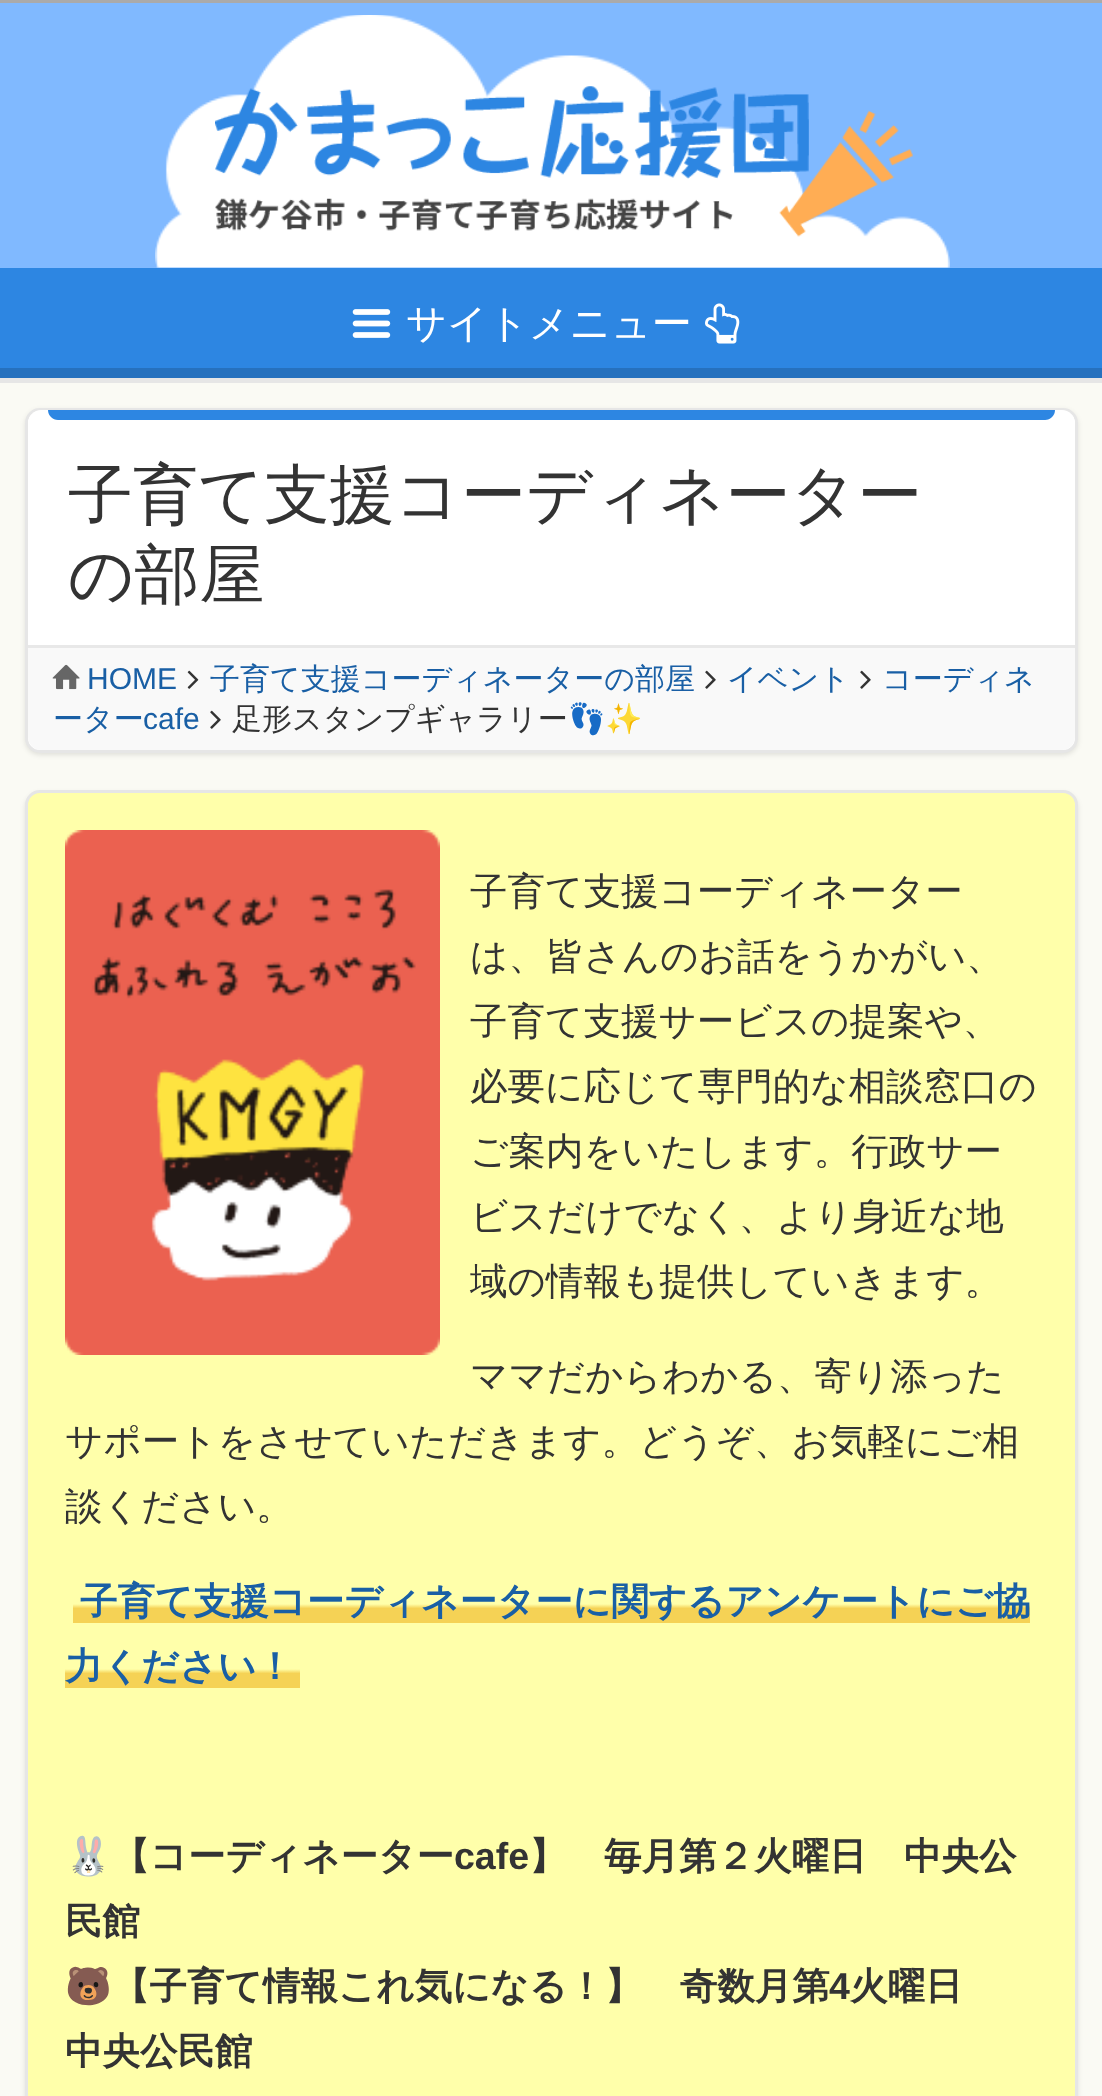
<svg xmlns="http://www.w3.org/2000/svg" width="1102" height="2096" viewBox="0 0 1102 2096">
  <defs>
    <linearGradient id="g1" gradientUnits="userSpaceOnUse" x1="551" y1="1580" x2="551" y2="1623"><stop offset="0.56" stop-color="rgb(255,255,170)"/><stop offset="0.66" stop-color="rgb(245,210,85)"/></linearGradient>
    <linearGradient id="g2" gradientUnits="userSpaceOnUse" x1="183" y1="1645" x2="183" y2="1688"><stop offset="0.56" stop-color="rgb(255,255,170)"/><stop offset="0.66" stop-color="rgb(245,210,85)"/></linearGradient>
  </defs>
  <rect width="100%" height="100%" fill="rgb(250,250,244)"/>
  <rect x="0" y="3" width="1102" height="265" fill="rgb(128,185,255)"/>
  <rect x="0" y="0" width="1102" height="3" fill="rgb(170,170,170)"/>
  <image x="155" y="15" width="795" height="253" href="pic1.png"/>
  <image x="215" y="86" width="698" height="151" href="pic2.png"/>
  <rect x="0" y="268" width="1102" height="100" fill="rgb(45,134,226)"/>
  <rect x="0" y="368" width="1102" height="10" fill="rgb(38,113,190)"/>
  <image x="352" y="309" width="39" height="29" href="pic3.png"/>
  <text x="406" y="337" font-family="WenQuanYi Zen Hei" font-size="40" font-weight="500" fill="rgb(255,255,255)">サイトメニュー</text>
  <image x="705" y="303" width="35" height="41" href="pic4.png"/>
  <rect x="0" y="378" width="1102" height="5" fill="rgb(230,230,230)"/>
  <rect x="25" y="410" width="1053" height="345" rx="15" fill="rgba(0,0,0,0.1)" filter="blur(2.5px)"/>
  <rect x="26.5" y="409.5" width="1050" height="342" rx="13.5" fill="rgb(255,255,255)" stroke="rgb(230,230,230)" stroke-width="3"/>
  <path d="M41 410H1062C1069 410 1075 416 1075 423V648H28V423C28 416 34 410 41 410Z" fill="rgb(255,255,255)"/>
  <rect x="28" y="645" width="1047" height="3" fill="rgb(232,232,232)"/>
  <path d="M48 410H1055C1055 415.5 1050.5 420 1045 420H58C52.5 420 48 415.5 48 410Z" fill="rgb(45,134,226)"/>
  <g font-family="WenQuanYi Zen Hei" font-size="65" font-weight="500" fill="rgb(51,51,51)">
    <text>
      <tspan x="68" y="517">子育て支援コーディネーター</tspan>
      <tspan x="68" y="597">の部屋</tspan>
    </text>
  </g>
  <path d="M28 648H1075V737C1075 744 1069 750 1062 750H41C34 750 28 744 28 737Z" fill="rgb(249,249,249)"/>
  <image x="52" y="664" width="28" height="26" href="pic5.png"/>
  <text x="87" y="689" font-family="Liberation Sans" font-size="30" fill="rgb(25,95,165)">HOME</text>
  <image x="187" y="670" width="12" height="19" href="pic6.png"/>
  <text x="210" y="689" font-family="WenQuanYi Zen Hei" font-size="30" font-weight="500" fill="rgb(25,95,165)">子育て支援コーディネーターの部屋</text>
  <image x="705" y="670" width="11" height="19" href="pic7.png"/>
  <text x="727" y="689" font-family="WenQuanYi Zen Hei" font-size="30" font-weight="500" fill="rgb(25,95,165)">イベント</text>
  <image x="860" y="670" width="11" height="19" href="pic7.png"/>
  <g font-family="WenQuanYi Zen Hei" font-size="30" font-weight="500" fill="rgb(25,95,165)">
    <text x="882" y="689">コーディネ</text>
    <text x="53" y="729">ーター</text>
  </g>
  <text x="143" y="729" font-family="Liberation Sans" font-size="30" fill="rgb(25,95,165)">cafe</text>
  <image x="210" y="710" width="11" height="19" href="pic7.png"/>
  <text x="232" y="729" font-family="WenQuanYi Zen Hei" font-size="30" font-weight="500" fill="rgb(51,51,51)">足形スタンプギャラリー</text>
  <text x="568" y="729" font-family="Noto Color Emoji" font-size="30" fill="rgb(51,51,51)">👣✨</text>
  <rect x="25" y="793" width="1053" height="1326" rx="15" fill="rgba(0,0,0,0.1)" filter="blur(2.5px)"/>
  <rect x="26.5" y="791.5" width="1050" height="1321" rx="13.5" fill="rgb(255,255,170)" stroke="rgb(230,230,230)" stroke-width="3"/>
  <image x="65" y="830" width="375" height="525" href="pic8.png"/>
  <g font-family="WenQuanYi Zen Hei" font-size="37.5" font-weight="500" fill="rgb(51,51,51)">
    <text>
      <tspan x="470" y="904">子育て支援コーディネーター</tspan>
      <tspan x="470" y="969">は、皆さんのお話をうかがい、</tspan>
      <tspan x="470" y="1034">子育て支援サービスの提案や、</tspan>
      <tspan x="470" y="1099">必要に応じて専門的な相談窓口の</tspan>
      <tspan x="470" y="1164">ご案内をいたします。行政サー</tspan>
      <tspan x="470" y="1229">ビスだけでなく、より身近な地</tspan>
      <tspan x="470" y="1294">域の情報も提供していきます。</tspan>
    </text>
    <text x="470" y="1389">ママだからわかる、寄り添った</text>
    <text>
      <tspan x="65" y="1454">サポートをさせていただきます。どうぞ、お気軽にご相</tspan>
      <tspan x="65" y="1519">談ください。</tspan>
    </text>
  </g>
  <rect x="73" y="1604" width="957" height="19" fill="url(#g1)"/>
  <text x="80" y="1614" font-family="WenQuanYi Zen Hei" font-size="37.5" font-weight="bold" fill="rgb(25,95,165)">子育て支援コーディネーターに関するアンケートにご協</text>
  <rect x="65" y="1669" width="235" height="19" fill="url(#g2)"/>
  <text x="65" y="1679" font-family="WenQuanYi Zen Hei" font-size="37.5" font-weight="bold" fill="rgb(25,95,165)">力ください！</text>
  <text x="65" y="1869" font-family="Noto Color Emoji" font-size="37.5" fill="rgb(51,51,51)">🐰</text>
  <text x="112" y="1869" font-family="WenQuanYi Zen Hei" font-size="37.5" font-weight="bold" fill="rgb(51,51,51)">【コーディネーター</text>
  <text x="454" y="1869" font-family="Liberation Sans" font-size="37.5" font-weight="bold" fill="rgb(51,51,51)">cafe</text>
  <g font-family="WenQuanYi Zen Hei" font-size="37.5" font-weight="bold" fill="rgb(51,51,51)">
    <text x="529" y="1869">】　毎月第２火曜日　中央公</text>
    <text x="65" y="1934">民館</text>
  </g>
  <text x="65" y="1999" font-family="Noto Color Emoji" font-size="37.5" fill="rgb(51,51,51)">🐻</text>
  <text x="112" y="1999" font-family="WenQuanYi Zen Hei" font-size="37.5" font-weight="bold" fill="rgb(51,51,51)">【子育て情報これ気になる！】　奇数月第</text>
  <text x="829" y="1999" font-family="Liberation Sans" font-size="37.5" font-weight="bold" fill="rgb(51,51,51)">4</text>
  <g font-family="WenQuanYi Zen Hei" font-size="37.5" font-weight="bold" fill="rgb(51,51,51)">
    <text x="850" y="1999">火曜日</text>
    <text x="65" y="2064">中央公民館</text>
  </g>
</svg>
